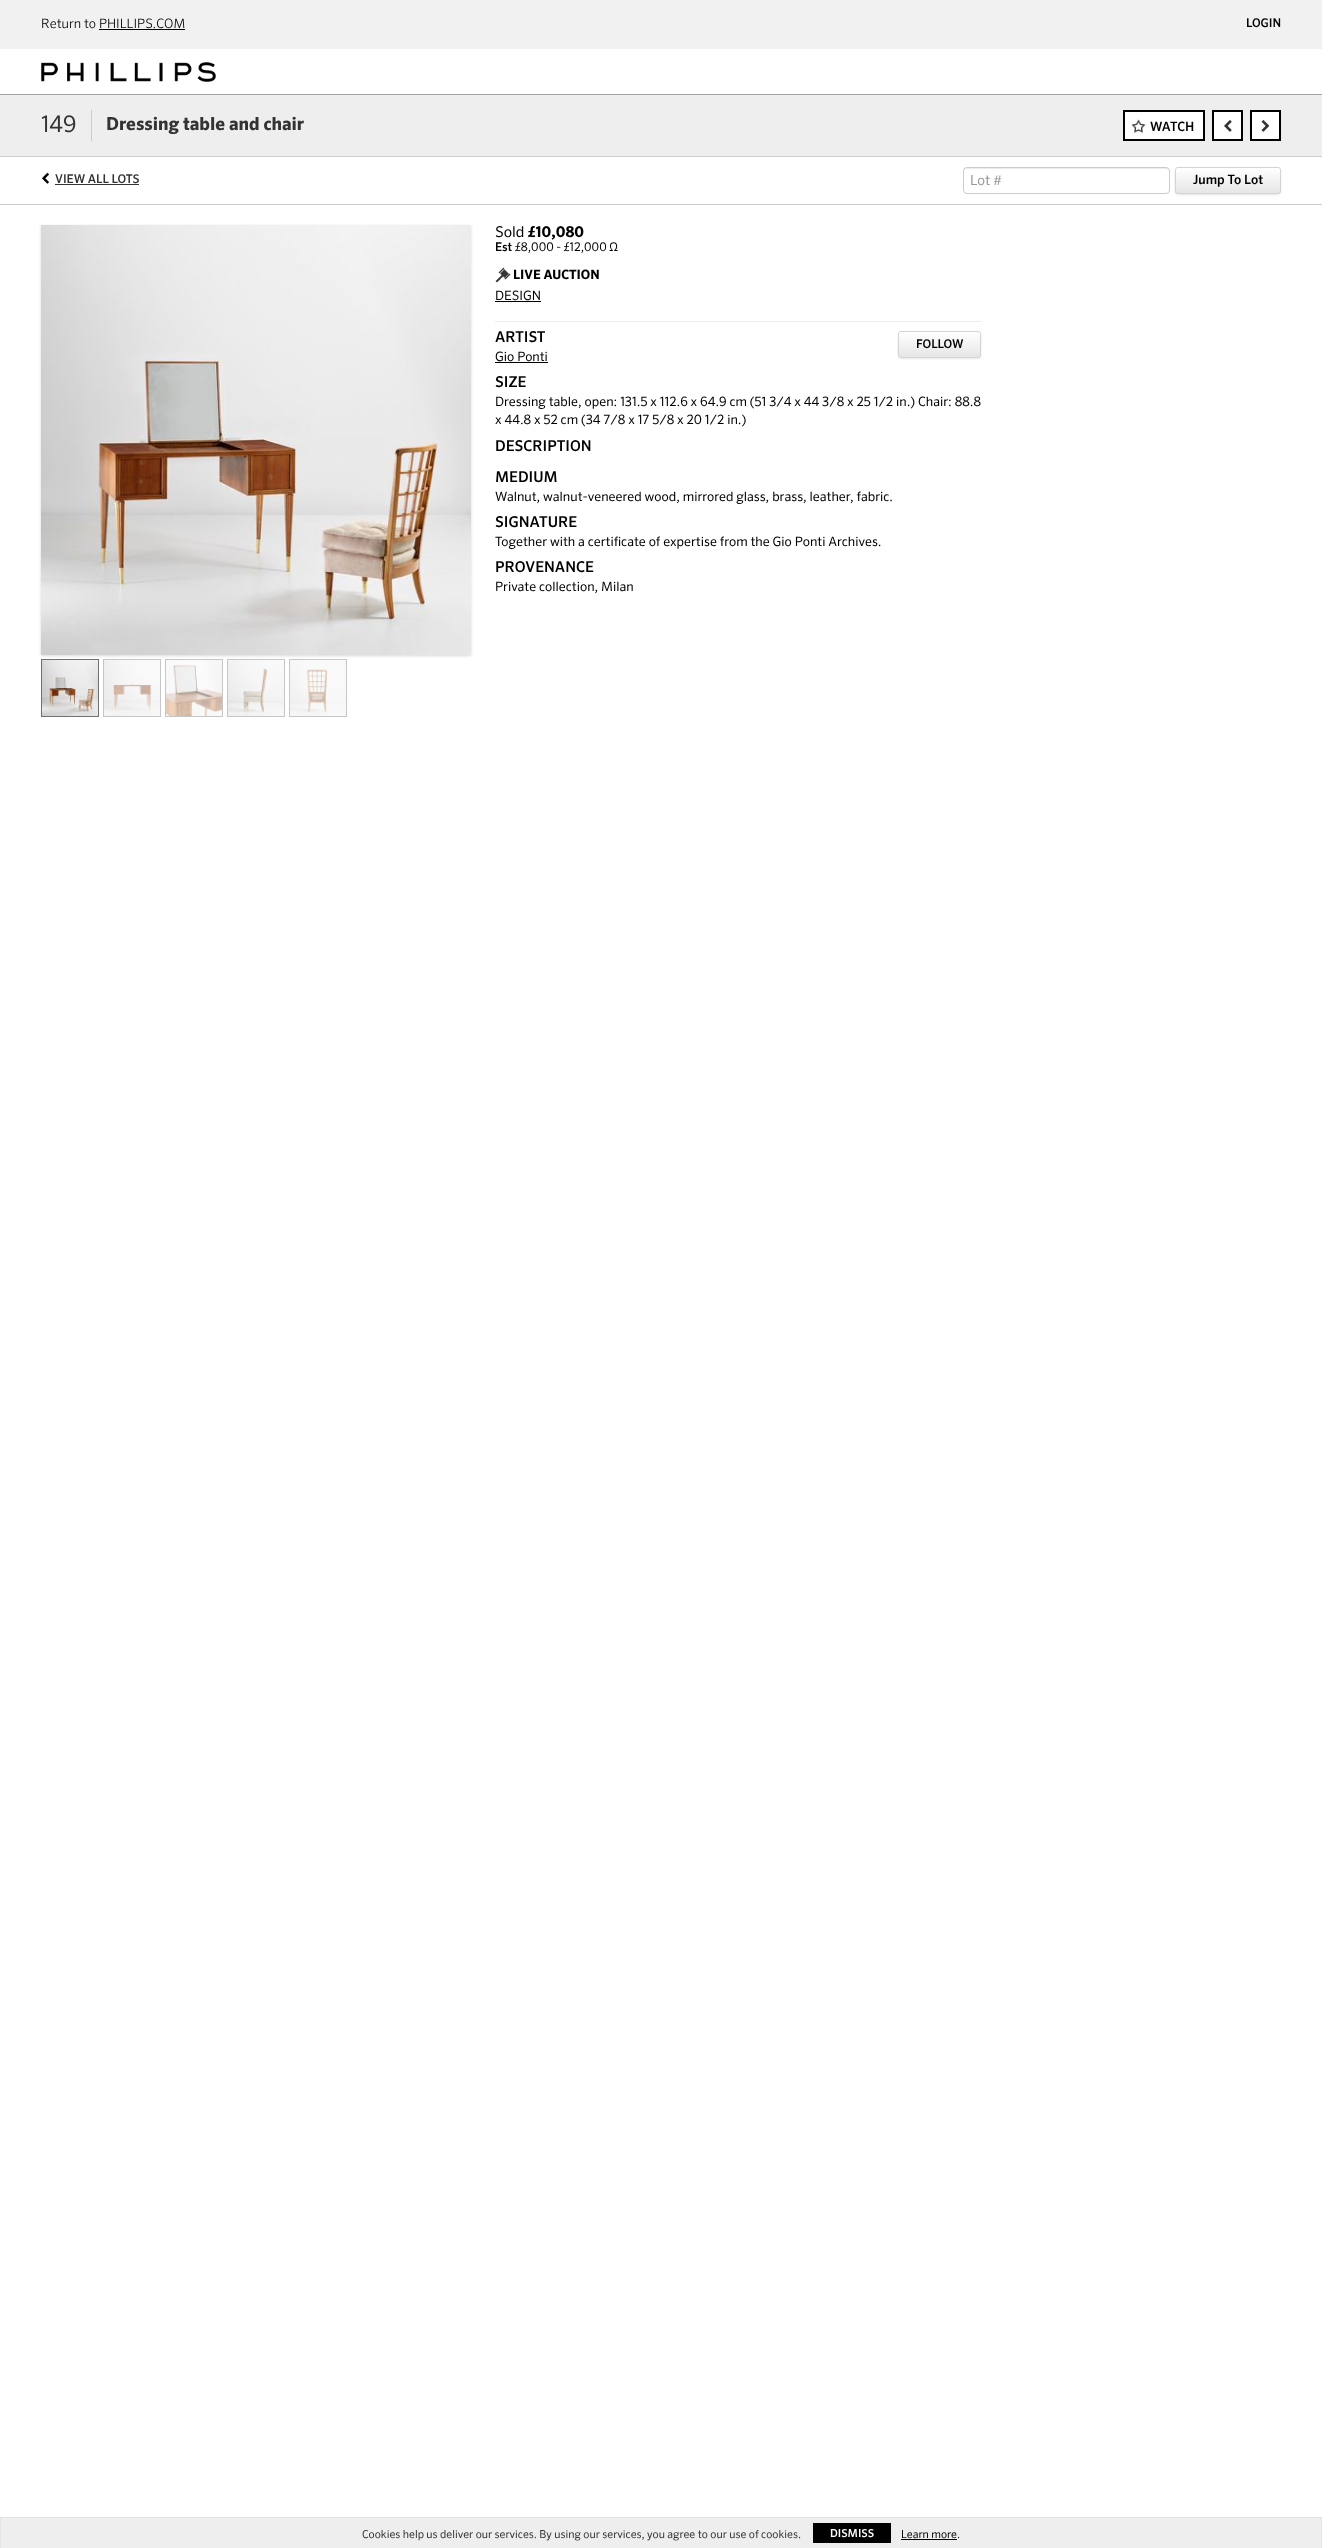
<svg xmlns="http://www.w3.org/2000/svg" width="1322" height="2548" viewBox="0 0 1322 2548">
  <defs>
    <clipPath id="clip1"><rect x="1175" y="167" width="106" height="27" rx="3"/></clipPath>
    <linearGradient id="g1" gradientUnits="userSpaceOnUse" x1="1228" y1="168" x2="1228" y2="193"><stop offset="0" stop-color="rgb(255,255,255)"/><stop offset="1" stop-color="rgb(230,230,230)"/></linearGradient>
    <clipPath id="clip2"><rect x="898" y="331" width="83" height="27" rx="3"/></clipPath>
    <linearGradient id="g2" gradientUnits="userSpaceOnUse" x1="940" y1="332" x2="940" y2="357"><stop offset="0" stop-color="rgb(255,255,255)"/><stop offset="1" stop-color="rgb(230,230,230)"/></linearGradient>
  </defs>
  <rect width="100%" height="100%" fill="rgb(255,255,255)"/>
  <rect x="0" y="94" width="1322" height="1" fill="rgb(163,163,163)"/>
  <rect x="0" y="0" width="1322" height="49" fill="rgb(241,241,241)"/>
  <text x="41" y="28" font-family="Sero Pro" font-size="13" font-weight="300" fill="rgb(0,0,0)">Return to PHILLIPS.COM</text>
  <rect x="99" y="29" width="86" height="1" fill="rgb(0,0,0)"/>
  <text x="1246" y="27" font-family="Sero Pro" font-size="12" font-weight="500" fill="rgb(0,0,0)">LOGIN</text>
  <image x="41" y="62" width="175" height="20" href="pic1.png"/>
  <rect x="0" y="95" width="1322" height="61" fill="rgb(238,238,238)"/>
  <rect x="0" y="156" width="1322" height="1" fill="rgb(204,204,204)"/>
  <text x="41" y="132" font-family="Sero Pro" font-size="23" fill="rgb(51,51,51)">149</text>
  <rect x="91" y="110" width="1" height="31" fill="rgb(204,204,204)"/>
  <text x="106" y="130" font-family="Sero Pro" font-size="18" font-weight="bold" fill="rgb(51,51,51)">Dressing table and chair</text>
  <rect x="1124" y="111" width="80" height="29" fill="rgb(255,255,255)" stroke="rgb(0,0,0)" stroke-width="2"/>
  <image x="1131" y="119" width="15" height="14" href="pic2.png"/>
  <text x="1150" y="131" font-family="Sero Pro" font-size="13" font-weight="500" fill="rgb(0,0,0)">WATCH</text>
  <rect x="1213" y="111" width="29" height="29" fill="rgb(255,255,255)" stroke="rgb(0,0,0)" stroke-width="2"/>
  <image x="1224" y="120" width="8" height="12" href="pic3.png"/>
  <rect x="1251" y="111" width="29" height="29" fill="rgb(255,255,255)" stroke="rgb(0,0,0)" stroke-width="2"/>
  <image x="1261" y="120" width="9" height="12" href="pic4.png"/>
  <image x="42" y="172" width="7" height="12" href="pic5.png"/>
  <text x="55" y="183" font-family="Sero Pro" font-size="12" font-weight="500" fill="rgb(51,51,51)">VIEW ALL LOTS</text>
  <rect x="55" y="184" width="84" height="1" fill="rgb(51,51,51)"/>
  <path d="M967 169H1166C1168 169 1169 170 1169 172C1169 170 1168 168 1166 168H967C965 168 964 170 964 172C964 170 965 169 967 169Z" fill="rgb(236,236,236)"/>
  <rect x="963.5" y="167.5" width="206" height="26" rx="3.5" fill="none" stroke="rgb(204,204,204)"/>
  <text x="970" y="185" font-family="Sero Pro" font-size="14" fill="rgb(153,153,153)">Lot #</text>
  <rect x="1176" y="169" width="104" height="25" rx="2" fill="rgba(0,0,0,0.2)" filter="blur(1.5px)"/>
  <g clip-path="url(#clip1)">
    <rect x="1175" y="168" width="106" height="25" fill="url(#g1)"/>
  </g>
  <path d="M1178 169H1278C1279 169 1280 170 1280 171C1280 170 1280 168 1278 168H1195C1194 168 1176 163 1176 171C1176 170 1177 169 1178 169Z" fill="rgba(255,255,255,0.4)"/>
  <rect x="1175.5" y="167.5" width="105" height="26" rx="2.5" fill="none" stroke="rgb(212,212,212)"/>
  <text x="1193" y="184" font-family="Sero Pro" font-size="13" font-weight="500" fill="rgb(0,0,0)">Jump To Lot</text>
  <rect x="0" y="204" width="1322" height="1" fill="rgb(204,204,204)"/>
  <rect x="41" y="226" width="430" height="430" fill="rgb(218,217,215)" filter="blur(1.5px)"/>
  <image x="41" y="225" width="430" height="430" href="pic6.png"/>
  <rect x="41.5" y="659.5" width="57" height="57" fill="none" stroke="rgb(113,113,113)"/>
  <rect x="103.5" y="659.5" width="57" height="57" fill="none" stroke="rgb(198,198,198)"/>
  <rect x="165.5" y="659.5" width="57" height="57" fill="none" stroke="rgb(198,198,198)"/>
  <rect x="227.5" y="659.5" width="57" height="57" fill="none" stroke="rgb(198,198,198)"/>
  <rect x="289.5" y="659.5" width="57" height="57" fill="none" stroke="rgb(198,198,198)"/>
  <image x="42" y="660" width="56" height="56" href="pic7.png"/>
  <image x="104" y="660" width="56" height="56" href="pic8.png"/>
  <image x="166" y="660" width="56" height="56" href="pic9.png"/>
  <image x="228" y="660" width="56" height="56" href="pic10.png"/>
  <image x="290" y="660" width="56" height="56" href="pic11.png"/>
  <text x="495" y="237" font-family="Sero Pro" font-size="15" fill="rgb(0,0,0)">Sold</text>
  <text x="528" y="237" font-family="Sero Pro" font-size="15" font-weight="bold" fill="rgb(0,0,0)">£10,080</text>
  <text x="495" y="251" font-family="Sero Pro" font-size="12" font-weight="500" fill="rgb(0,0,0)">Est</text>
  <text x="515" y="251" font-family="Sero Pro" font-size="12" fill="rgb(0,0,0)">£8,000 - £12,000 Ω</text>
  <image x="495" y="267" width="16" height="16" href="pic12.png"/>
  <text x="513" y="279" font-family="Sero Pro" font-size="13" font-weight="bold" fill="rgb(0,0,0)">LIVE AUCTION</text>
  <text x="495" y="300" font-family="Sero Pro" font-size="13" fill="rgb(0,0,0)">DESIGN</text>
  <rect x="495" y="301" width="46" height="1" fill="rgb(0,0,0)"/>
  <rect x="495" y="321" width="486" height="1" fill="rgb(238,238,238)"/>
  <text x="495" y="342" font-family="Sero Pro" font-size="15" font-weight="500" fill="rgb(0,0,0)">ARTIST</text>
  <rect x="899" y="333" width="81" height="25" rx="2" fill="rgba(0,0,0,0.2)" filter="blur(1.5px)"/>
  <g clip-path="url(#clip2)">
    <rect x="898" y="332" width="83" height="25" fill="url(#g2)"/>
  </g>
  <path d="M901 333H978C979 333 980 334 980 335C980 328 968 332 965 332H914C911 332 899 328 899 335C899 334 900 333 901 333Z" fill="rgba(255,255,255,0.4)"/>
  <rect x="898.5" y="331.5" width="82" height="26" rx="2.5" fill="none" stroke="rgb(212,212,212)"/>
  <text x="916" y="348" font-family="Sero Pro" font-size="12" font-weight="500" fill="rgb(0,0,0)">FOLLOW</text>
  <text x="495" y="361" font-family="Sero Pro" font-size="13" fill="rgb(0,0,0)">Gio Ponti</text>
  <rect x="495" y="362" width="53" height="1" fill="rgb(0,0,0)"/>
  <text x="495" y="387" font-family="Sero Pro" font-size="15" font-weight="500" fill="rgb(0,0,0)">SIZE</text>
  <g font-family="Sero Pro" font-size="13" fill="rgb(0,0,0)">
    <text>
      <tspan x="495" y="406">Dressing table, open: 131.5 x 112.6 x 64.9 cm (51 3/4 x 44 3/8 x 25 1/2 in.) Chair: 88.8</tspan>
      <tspan x="495" y="424">x 44.8 x 52 cm (34 7/8 x 17 5/8 x 20 1/2 in.)</tspan>
    </text>
  </g>
  <g font-family="Sero Pro" font-size="15" font-weight="500" fill="rgb(0,0,0)">
    <text x="495" y="451">DESCRIPTION</text>
    <text x="495" y="482">MEDIUM</text>
  </g>
  <text x="495" y="501" font-family="Sero Pro" font-size="13" fill="rgb(0,0,0)">Walnut, walnut-veneered wood, mirrored glass, brass, leather, fabric.</text>
  <text x="495" y="527" font-family="Sero Pro" font-size="15" font-weight="500" fill="rgb(0,0,0)">SIGNATURE</text>
  <text x="495" y="546" font-family="Sero Pro" font-size="13" fill="rgb(0,0,0)">Together with a certificate of expertise from the Gio Ponti Archives.</text>
  <text x="495" y="572" font-family="Sero Pro" font-size="15" font-weight="500" fill="rgb(0,0,0)">PROVENANCE</text>
  <text x="495" y="591" font-family="Sero Pro" font-size="13" fill="rgb(0,0,0)">Private collection, Milan</text>
  <rect x="1" y="2518" width="1320" height="30" fill="rgb(238,238,238)"/>
  <rect x="0" y="2517" width="1322" height="1" fill="rgb(228,228,228)"/>
  <rect x="1321" y="2517" width="1" height="31" fill="rgb(228,228,228)"/>
  <rect x="0" y="2517" width="1" height="31" fill="rgb(228,228,228)"/>
  <text x="362" y="2538" font-family="Sero Pro" font-size="11" fill="rgb(51,51,51)">Cookies help us deliver our services. By using our services, you agree to our use of cookies.</text>
  <rect x="813" y="2523" width="78" height="20" fill="rgb(0,0,0)"/>
  <text x="830" y="2537" font-family="Sero Pro" font-size="11" font-weight="500" fill="rgb(255,255,255)">DISMISS</text>
  <text x="901" y="2538" font-family="Sero Pro" font-size="11" fill="rgb(0,0,0)">Learn more</text>
  <rect x="901" y="2539" width="56" height="1" fill="rgb(0,0,0)"/>
  <text x="957" y="2538" font-family="Sero Pro" font-size="11" fill="rgb(51,51,51)">.</text>
</svg>
